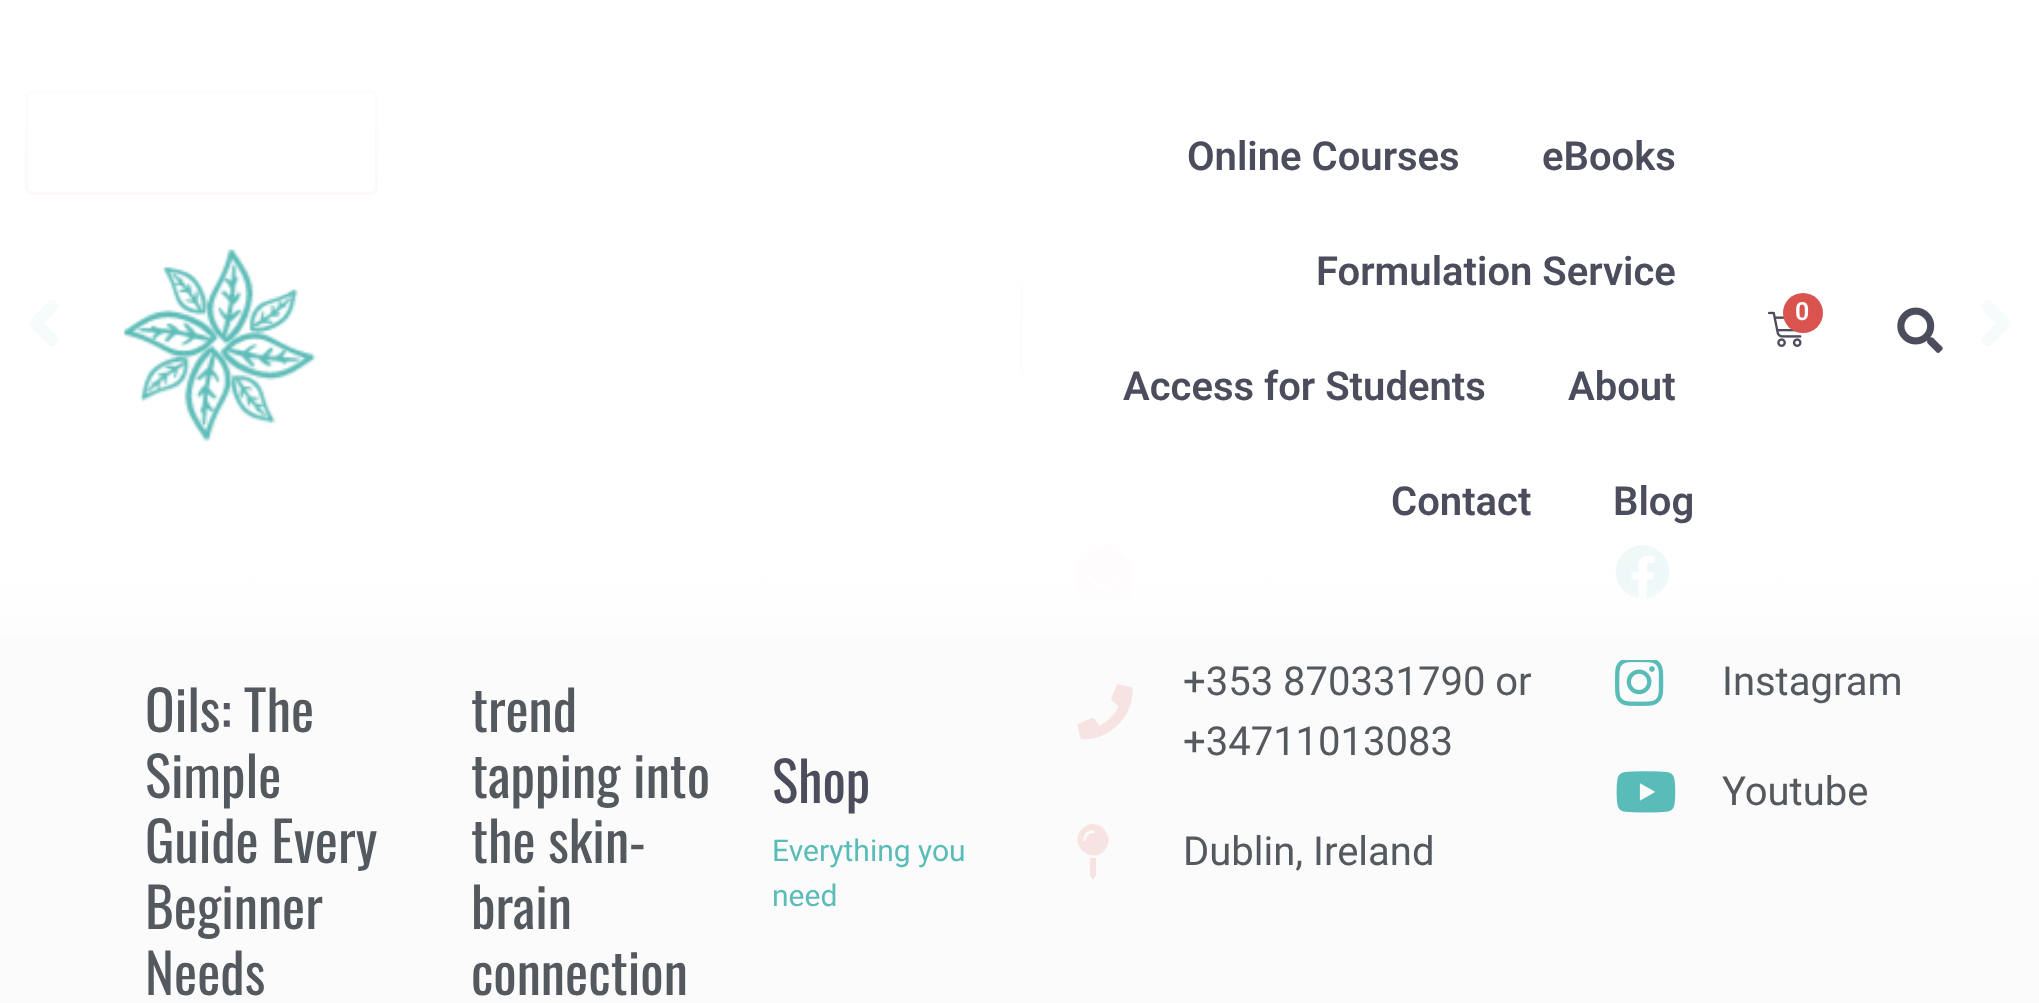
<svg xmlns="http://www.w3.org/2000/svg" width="2039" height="1003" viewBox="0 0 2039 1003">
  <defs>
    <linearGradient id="g1" gradientUnits="userSpaceOnUse" x1="1020" y1="0" x2="1020" y2="660"><stop offset="0" stop-color="rgb(255,255,255)"/><stop offset="0.88" stop-color="rgb(255,255,255)" stop-opacity="0.9"/><stop offset="1" stop-color="rgb(252,252,252)"/></linearGradient>
  </defs>
  <rect width="100%" height="100%" fill="rgb(255,255,255)"/>
  <rect x="26.5" y="6.5" width="30" height="30" rx="3.5" fill="none" stroke="rgb(118,118,118)" stroke-width="3"/>
  <rect x="26.5" y="91.5" width="350" height="102" rx="6.5" fill="none" stroke="rgb(204,51,102)" stroke-width="3"/>
  <path d="M30 321L43 307C49 301 50 296 57 303C61 308 57 310 53 314L44 323L53 332C55 334 61 338 58 342C51 350 50 346 43 339L33 329C31 327 27 324 30 321Z" fill="rgb(89,188,184)"/>
  <rect x="1020" y="283" width="3" height="90" fill="rgb(213,216,220)"/>
  <path d="M2010 326L1997 339C1991 345 1990 350 1983 343C1979 338 1983 337 1987 332L1996 323L1987 314C1985 312 1979 308 1982 304C1989 296 1990 300 1997 307L2007 317C2009 319 2013 323 2010 326Z" fill="rgb(89,188,184)"/>
  <rect x="0" y="398" width="2039" height="605" fill="rgb(251,251,251)"/>
  <image x="1077" y="544" width="56" height="56" href="pic4.png"/>
  <image x="1615" y="545" width="55" height="54" href="pic6.png"/>
  <rect x="0" y="5" width="2039" height="629" fill="url(#g1)"/>
  <image x="123" y="249" width="194" height="193" href="pic1.png"/>
  <g font-family="Roboto" font-size="40" font-weight="600" fill="rgb(75,77,93)">
    <text x="1187" y="170">Online Courses</text>
    <text x="1542" y="170">eBooks</text>
    <text x="1316" y="285">Formulation Service</text>
    <text x="1123" y="400">Access for Students</text>
    <text x="1568" y="400">About</text>
    <text x="1391" y="515">Contact</text>
    <text x="1613" y="515">Blog</text>
  </g>
  <image x="1767" y="311" width="35" height="36" href="pic2.png"/>
  <circle cx="1803" cy="313" r="20" fill="rgb(217,83,79)"/>
  <text x="1795" y="320" font-family="Roboto" font-size="25" font-weight="600" fill="rgb(255,255,255)">0</text>
  <image x="1897" y="307" width="46" height="46" href="pic3.png"/>
  <g font-family="Oswald" font-size="55" fill="rgb(84,89,95)">
    <text>
      <tspan x="145" y="732">Oils: The</tspan>
      <tspan x="145" y="798">Simple</tspan>
      <tspan x="145" y="863">Guide Every</tspan>
      <tspan x="145" y="929">Beginner</tspan>
      <tspan x="145" y="995">Needs</tspan>
    </text>
    <text>
      <tspan x="471" y="732">trend</tspan>
      <tspan x="471" y="798">tapping into</tspan>
      <tspan x="471" y="863">the skin-</tspan>
      <tspan x="471" y="929">brain</tspan>
      <tspan x="471" y="995">connection</tspan>
    </text>
  </g>
  <text x="772" y="803" font-family="Oswald" font-size="55" fill="rgb(75,77,93)">Shop</text>
  <g font-family="Roboto" font-size="30" fill="rgb(89,188,184)">
    <text>
      <tspan x="772" y="861">Everything you</tspan>
      <tspan x="772" y="906">need</tspan>
    </text>
  </g>
  <image x="1077" y="684" width="56" height="56" href="pic5.png"/>
  <g font-family="Roboto" font-size="40" fill="rgb(84,89,95)">
    <text>
      <tspan x="1183" y="695">+353 870331790 or</tspan>
      <tspan x="1183" y="755">+34711013083</tspan>
    </text>
  </g>
  <path d="M1090 858H1096V875C1093 881 1093 881 1090 875ZM1082 829C1096 814 1118 836 1104 851C1090 865 1068 843 1082 829ZM1093 833C1097 833 1093 826 1086 833C1085 834 1081 842 1085 841C1086 841 1086 833 1093 833Z" fill="rgb(247,228,226)"/>
  <text x="1183" y="865" font-family="Roboto" font-size="40" fill="rgb(84,89,95)">Dublin, Ireland</text>
  <image x="1615" y="660" width="49" height="46" href="pic7.png"/>
  <text x="1722" y="695" font-family="Roboto" font-size="40" fill="rgb(84,89,95)">Instagram</text>
  <image x="1616" y="771" width="60" height="42" href="pic8.png"/>
  <text x="1722" y="805" font-family="Roboto" font-size="40" fill="rgb(84,89,95)">Youtube</text>
</svg>
